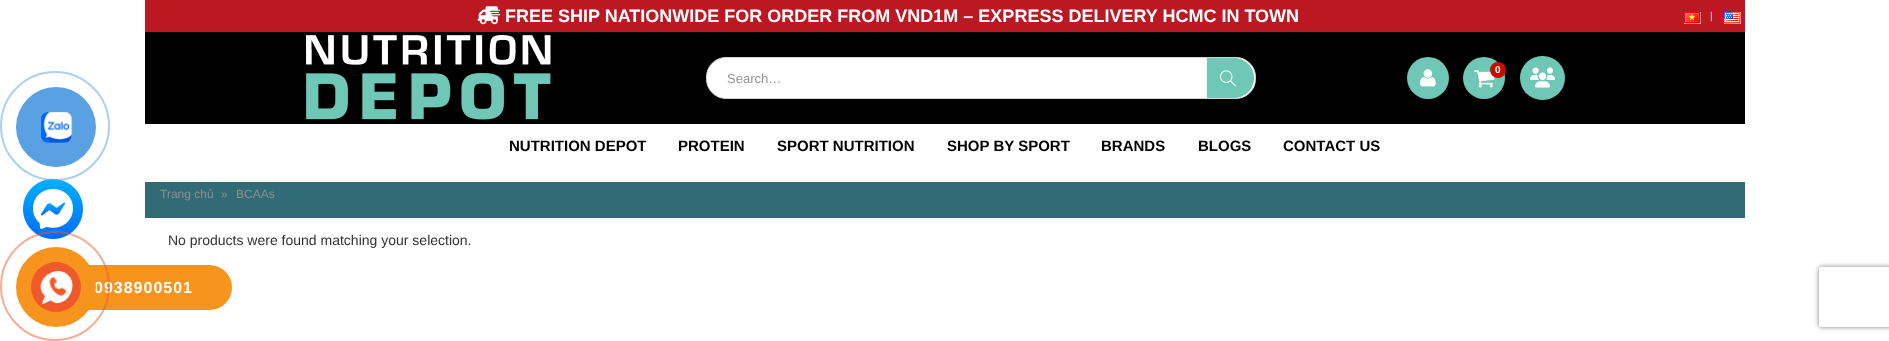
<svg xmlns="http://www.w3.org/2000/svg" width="1889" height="341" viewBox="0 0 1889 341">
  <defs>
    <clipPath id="clip1"><path d="M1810 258H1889V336H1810ZM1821 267H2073C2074 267 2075 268 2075 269V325C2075 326 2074 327 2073 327H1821C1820 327 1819 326 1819 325V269C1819 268 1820 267 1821 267Z" clip-rule="evenodd"/></clipPath>
  </defs>
  <rect width="100%" height="100%" fill="rgb(255,255,255)"/>
  <image x="23" y="179" width="60" height="60" href="pic10.png"/>
  <circle cx="55" cy="126" r="54" fill="none" stroke="rgba(90,161,227,0.5)" stroke-width="2"/>
  <circle cx="56" cy="127" r="40" fill="rgb(90,161,227)"/>
  <image x="41" y="112" width="32" height="31" href="pic1.png"/>
  <rect x="145" y="0" width="1600" height="32" fill="rgb(188,24,35)"/>
  <image x="477" y="6" width="24" height="19" href="pic2.png"/>
  <text x="505" y="22" font-family="Liberation Sans" font-size="18" font-weight="bold" fill="rgb(255,255,255)">FREE SHIP NATIONWIDE FOR ORDER FROM VND1M – EXPRESS DELIVERY HCMC IN TOWN</text>
  <rect x="1684.25" y="12.25" width="16.5" height="11.5" fill="none" stroke="rgb(255,255,255)" stroke-width="0.5"/>
  <image x="1684" y="12" width="16" height="11" href="pic3.png"/>
  <text x="1710" y="19" font-family="Liberation Sans" font-size="10" fill="rgb(242,209,211)">|</text>
  <rect x="1724.25" y="12.25" width="16.5" height="11.5" fill="none" stroke="rgb(255,255,255)" stroke-width="0.5"/>
  <image x="1724" y="12" width="16" height="11" href="pic4.png"/>
  <rect x="145" y="32" width="1600" height="92" fill="rgb(0,0,0)"/>
  <image x="306" y="35" width="245" height="85" href="pic5.png"/>
  <circle cx="1428" cy="78" r="21" fill="rgb(111,199,182)"/>
  <image x="1420" y="69" width="16" height="18" href="pic6.png"/>
  <circle cx="1484" cy="78" r="21" fill="rgb(111,199,182)"/>
  <image x="1474" y="70" width="21" height="18" href="pic7.png"/>
  <circle cx="1498" cy="70" r="8" fill="rgb(199,12,0)"/>
  <text x="1495" y="73" font-family="Liberation Sans" font-size="10" font-weight="bold" fill="rgb(255,255,255)">0</text>
  <rect x="1520" y="56" width="45" height="44" rx="22" fill="rgb(111,199,182)"/>
  <image x="1530" y="67" width="25" height="21" href="pic8.png"/>
  <rect x="706.5" y="57.5" width="549" height="41" rx="19.5" fill="rgb(255,255,255)" stroke="rgb(208,213,216)"/>
  <rect x="1206" y="58" width="1" height="40" fill="rgb(245,245,245)"/>
  <text x="727" y="83" font-family="Liberation Sans" font-size="13" fill="rgb(148,148,148)">Search…</text>
  <path d="M1207 58H1234C1245 58 1254 67 1254 78C1254 89 1245 98 1234 98H1207Z" fill="rgb(111,199,182)"/>
  <image x="1220" y="70" width="16" height="17" href="pic9.png"/>
  <g font-family="Liberation Sans" font-size="15" font-weight="bold" fill="rgb(0,0,0)">
    <text x="509" y="151">NUTRITION DEPOT</text>
    <text x="678" y="151">PROTEIN</text>
    <text x="777" y="151">SPORT NUTRITION</text>
    <text x="947" y="151">SHOP BY SPORT</text>
    <text x="1101" y="151">BRANDS</text>
    <text x="1198" y="151">BLOGS</text>
    <text x="1283" y="151">CONTACT US</text>
  </g>
  <rect x="145" y="182" width="1600" height="36" fill="rgb(49,108,118)"/>
  <g font-family="Liberation Sans" font-size="12" fill="rgb(142,142,142)">
    <text x="160" y="198">Trang chủ</text>
    <text x="221" y="198">»</text>
    <text x="236" y="198">BCAAs</text>
  </g>
  <text x="168" y="245" font-family="Liberation Sans" font-size="14" fill="rgb(51,51,51)">No products were found matching your selection.</text>
  <rect x="42" y="265" width="190" height="45" rx="22.5" fill="rgb(247,148,29)"/>
  <text x="94" y="293" font-family="Liberation Sans" font-size="16" font-weight="bold" letter-spacing="1" fill="rgb(255,255,255)">0938900501</text>
  <circle cx="55" cy="286" r="54" fill="none" stroke="rgba(240,89,42,0.5)" stroke-width="2"/>
  <circle cx="56" cy="287" r="40" fill="rgb(247,148,29)"/>
  <circle cx="56" cy="287" r="25" fill="rgb(240,89,42)"/>
  <image x="40" y="270" width="33" height="34" href="pic11.png"/>
  <g clip-path="url(#clip1)">
    <rect x="1819" y="267" width="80" height="60" rx="2" fill="rgb(128,128,128)" filter="blur(2.5px)"/>
  </g>
</svg>
